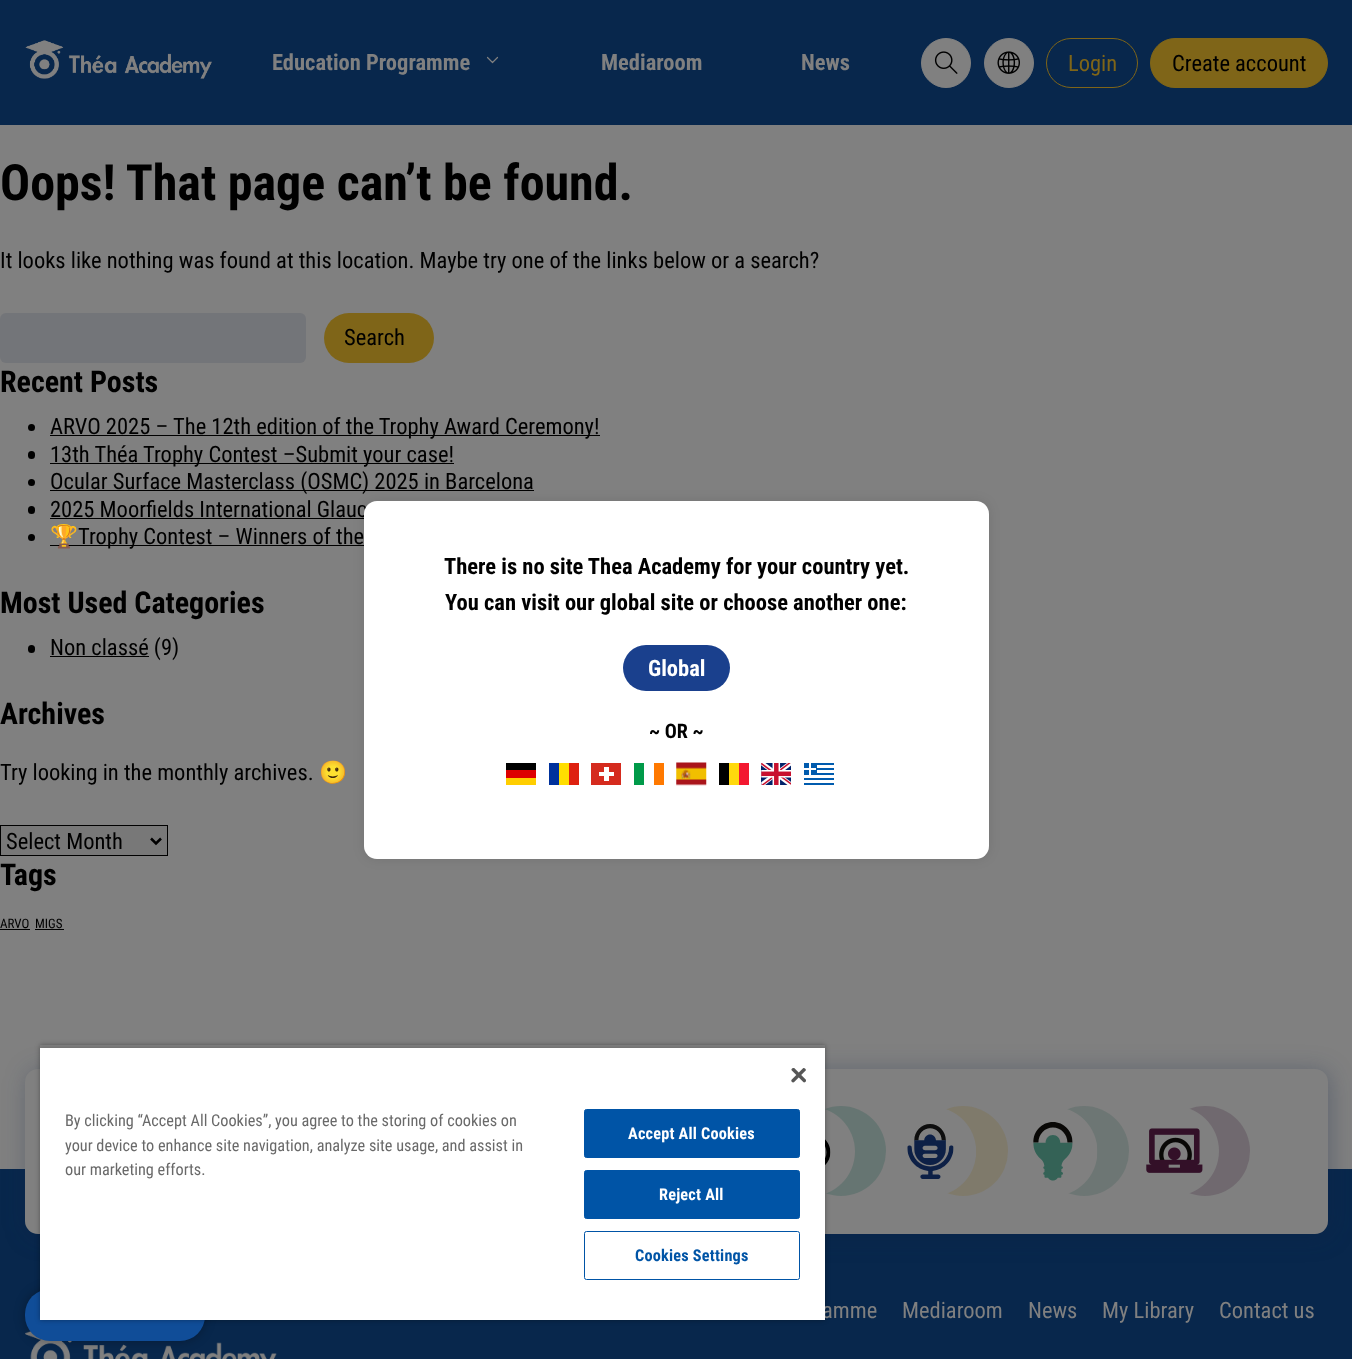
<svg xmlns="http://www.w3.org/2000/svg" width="1352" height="1359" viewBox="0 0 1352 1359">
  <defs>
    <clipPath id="clip1"><path d="M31 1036H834V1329H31ZM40 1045H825V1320H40Z" clip-rule="evenodd"/></clipPath>
    <clipPath id="clip2"><rect x="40" y="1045" width="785" height="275"/></clipPath>
  </defs>
  <rect width="100%" height="100%" fill="rgb(128,128,128)"/>
  <rect x="0" y="0" width="1352" height="125" fill="rgb(8,39,76)"/>
  <image x="25" y="40" width="187" height="39" href="pic1.png"/>
  <text x="272" y="70" font-family="Roboto Condensed" font-size="22.5" font-weight="bold" fill="rgb(128,128,128)">Education Programme</text>
  <path d="M487.5 57.5L492.5 62.5L497.5 57.5" fill="none" stroke="rgb(128,128,128)" stroke-width="1.2" stroke-linecap="round" stroke-linejoin="round"/>
  <g font-family="Roboto Condensed" font-size="22.5" font-weight="bold" fill="rgb(128,128,128)">
    <text x="601" y="70">Mediaroom</text>
    <text x="801" y="70">News</text>
  </g>
  <circle cx="946" cy="63" r="24.5" fill="rgb(128,128,128)" stroke="rgb(128,128,128)"/>
  <image x="934" y="51" width="24" height="23" href="pic2.png"/>
  <circle cx="1009" cy="63" r="24.5" fill="rgb(128,128,128)" stroke="rgb(128,128,128)"/>
  <image x="997" y="51" width="23" height="23" href="pic3.png"/>
  <rect x="1046.5" y="38.5" width="91" height="49" rx="24.5" fill="none" stroke="rgb(127,101,24)"/>
  <text x="1068" y="71" font-family="Roboto Condensed" font-size="22.5" fill="rgb(127,101,24)">Login</text>
  <rect x="1150.5" y="38.5" width="177" height="49" rx="24.5" fill="rgb(127,101,24)" stroke="rgb(127,101,24)"/>
  <text x="1172" y="71" font-family="Roboto Condensed" font-size="22.5" fill="rgb(0,0,0)">Create account</text>
  <text x="0" y="200" font-family="Roboto Condensed" font-size="50" font-weight="bold" fill="rgb(0,0,0)">Oops! That page can’t be found.</text>
  <text x="0" y="268" font-family="Roboto Condensed" font-size="22.5" fill="rgb(0,0,0)">It looks like nothing was found at this location. Maybe try one of the links below or a search?</text>
  <rect x="0" y="313" width="306" height="50" rx="6" fill="rgb(115,117,121)"/>
  <rect x="324" y="313" width="110" height="50" rx="25" fill="rgb(127,101,24)"/>
  <text x="344" y="345" font-family="Roboto Condensed" font-size="22.5" fill="rgb(0,0,0)">Search</text>
  <text x="0" y="392" font-family="Roboto Condensed" font-size="30" font-weight="bold" fill="rgb(0,0,0)">Recent Posts</text>
  <circle cx="31.5" cy="427.5" r="3.5" fill="rgb(0,0,0)"/>
  <rect x="50" y="435" width="550" height="1" fill="rgb(0,0,0)"/>
  <text x="50" y="434" font-family="Roboto Condensed" font-size="22.5" fill="rgb(0,0,0)">ARVO 2025 – The 12th edition of the Trophy Award Ceremony!</text>
  <rect x="28" y="451" width="7" height="8" rx="3.5" fill="rgb(0,0,0)"/>
  <rect x="50" y="463" width="404" height="1" fill="rgb(0,0,0)"/>
  <text x="50" y="462" font-family="Roboto Condensed" font-size="22.5" fill="rgb(0,0,0)">13th Théa Trophy Contest –Submit your case!</text>
  <circle cx="31.5" cy="482.5" r="3.5" fill="rgb(0,0,0)"/>
  <rect x="50" y="490" width="484" height="1" fill="rgb(0,0,0)"/>
  <text x="50" y="489" font-family="Roboto Condensed" font-size="22.5" fill="rgb(0,0,0)">Ocular Surface Masterclass (OSMC) 2025 in Barcelona</text>
  <rect x="28" y="506" width="7" height="8" rx="3.5" fill="rgb(0,0,0)"/>
  <text x="50" y="517" font-family="Roboto Condensed" font-size="22.5" fill="rgb(0,0,0)">2025 Moorfields International Glauc</text>
  <rect x="50" y="518" width="314" height="1" fill="rgb(0,0,0)"/>
  <circle cx="31.5" cy="537.5" r="3.5" fill="rgb(0,0,0)"/>
  <rect x="50" y="545" width="314" height="1" fill="rgb(0,0,0)"/>
  <text x="50" y="544" font-family="Noto Color Emoji" font-size="22.5" fill="rgb(0,0,0)">🏆</text>
  <text x="78" y="544" font-family="Roboto Condensed" font-size="22.5" fill="rgb(0,0,0)">Trophy Contest – Winners of the</text>
  <text x="0" y="613" font-family="Roboto Condensed" font-size="30" font-weight="bold" fill="rgb(0,0,0)">Most Used Categories</text>
  <rect x="28" y="645" width="7" height="8" rx="3.5" fill="rgb(0,0,0)"/>
  <rect x="50" y="656" width="99" height="1" fill="rgb(0,0,0)"/>
  <text x="50" y="655" font-family="Roboto Condensed" font-size="22.5" fill="rgb(0,0,0)">Non classé (9)</text>
  <text x="0" y="724" font-family="Roboto Condensed" font-size="30" font-weight="bold" fill="rgb(0,0,0)">Archives</text>
  <text x="0" y="780" font-family="Roboto Condensed" font-size="22.5" fill="rgb(0,0,0)">Try looking in the monthly archives.</text>
  <text x="319" y="780" font-family="Noto Color Emoji" font-size="22.5" fill="rgb(0,0,0)">🙂</text>
  <rect x="0.5" y="825.5" width="167" height="30" fill="rgb(120,120,120)" stroke="rgb(0,0,0)"/>
  <path d="M151 838.5L156 843.5L161 838.5" fill="none" stroke="rgb(0,0,0)" stroke-width="2.5"/>
  <text x="6" y="849" font-family="Roboto Condensed" font-size="22.5" fill="rgb(0,0,0)">Select Month</text>
  <text x="0" y="885" font-family="Roboto Condensed" font-size="30" font-weight="bold" fill="rgb(0,0,0)">Tags</text>
  <text x="0" y="928" font-family="Roboto Condensed" font-size="13" fill="rgb(0,0,0)">ARVO</text>
  <rect x="0" y="929" width="30" height="1" fill="rgb(0,0,0)"/>
  <text x="35" y="928" font-family="Roboto Condensed" font-size="13" fill="rgb(0,0,0)">MIGS</text>
  <rect x="35" y="929" width="29" height="1" fill="rgb(0,0,0)"/>
  <rect x="364" y="501" width="625" height="358" rx="13" fill="rgba(0,0,0,0.1)" filter="blur(6px)"/>
  <rect x="364" y="501" width="625" height="358" rx="13" fill="rgb(255,255,255)"/>
  <g font-family="Roboto Condensed" font-size="22.5" font-weight="bold" fill="rgb(0,0,0)">
    <text x="444" y="574">There is no site Thea Academy for your country yet.</text>
    <text x="445" y="610">You can visit our global site or choose another one:</text>
  </g>
  <rect x="623" y="645" width="107" height="46" rx="23" fill="rgb(26,64,141)"/>
  <text x="648" y="676" font-family="Roboto Condensed" font-size="22.5" font-weight="bold" fill="rgb(255,255,255)">Global</text>
  <text x="649" y="738" font-family="Roboto Condensed" font-size="20" font-weight="bold" fill="rgb(0,0,0)">~ OR ~</text>
  <rect x="506" y="778" width="30" height="7" fill="rgb(255,206,0)"/>
  <rect x="506" y="763" width="30" height="7" fill="rgb(0,0,0)"/>
  <rect x="506" y="770" width="30" height="8" fill="rgb(221,0,0)"/>
  <rect x="549" y="763" width="10" height="22" fill="rgb(0,49,156)"/>
  <rect x="559" y="763" width="10" height="22" fill="rgb(255,222,0)"/>
  <rect x="569" y="763" width="10" height="22" fill="rgb(222,33,16)"/>
  <rect x="591" y="763" width="30" height="22" fill="rgb(213,43,30)"/>
  <rect x="599" y="772" width="15" height="4" fill="rgb(255,255,255)"/>
  <rect x="604" y="767" width="5" height="14" fill="rgb(255,255,255)"/>
  <rect x="634" y="763" width="10" height="22" fill="rgb(0,154,73)"/>
  <rect x="654" y="763" width="10" height="22" fill="rgb(255,121,0)"/>
  <image x="676" y="762" width="31" height="24" href="pic4.png"/>
  <rect x="719" y="763" width="10" height="22" fill="rgb(0,0,0)"/>
  <rect x="729" y="763" width="10" height="22" fill="rgb(255,217,12)"/>
  <rect x="739" y="763" width="10" height="22" fill="rgb(243,24,48)"/>
  <image x="761" y="763" width="30" height="22" href="pic5.png"/>
  <image x="804" y="763" width="30" height="22" href="pic6.png"/>
  <rect x="0" y="1169" width="1352" height="190" fill="rgb(8,39,76)"/>
  <image x="25" y="1331" width="252" height="28" href="pic12.png"/>
  <rect x="25" y="1289" width="180" height="52" rx="25" fill="rgba(0,0,0,0.3)" filter="blur(5.5px)"/>
  <rect x="25" y="1289" width="180" height="52" rx="25" fill="rgb(16,77,152)"/>
  <rect x="28" y="1071" width="1302" height="165" rx="13" fill="rgba(13,32,71,0.3)" filter="blur(12.5px)"/>
  <rect x="25" y="1069" width="1303" height="165" rx="13" fill="rgb(128,128,128)"/>
  <circle cx="841" cy="1151" r="45" fill="rgba(0,76,62,0.2)"/>
  <image x="825" y="1109" width="30" height="85" href="pic8.png"/>
  <g clip-path="url(#clip1)">
    <rect x="40" y="1045" width="785" height="275" fill="rgba(0,0,0,0.35)" filter="blur(2.5px)"/>
  </g>
  <g clip-path="url(#clip2)">
    <rect x="40" y="1048" width="785" height="272" fill="rgba(0,0,0,0.2)" filter="blur(2.5px)"/>
  </g>
  <text x="822" y="1318" font-family="Roboto Condensed" font-size="22.5" fill="rgb(128,128,128)">amme</text>
  <rect x="40" y="1048" width="785" height="272" fill="rgb(255,255,255)"/>
  <image x="791" y="1068" width="15" height="15" href="pic7.png"/>
  <g font-family="Roboto Condensed" font-size="16.25" fill="rgb(105,105,105)">
    <text>
      <tspan x="65" y="1126">By clicking “Accept All Cookies”, you agree to the storing of cookies on</tspan>
      <tspan x="65" y="1151">your device to enhance site navigation, analyze site usage, and assist in</tspan>
      <tspan x="65" y="1175">our marketing efforts.</tspan>
    </text>
  </g>
  <rect x="584.5" y="1109.5" width="215" height="48" rx="2" fill="rgb(0,84,166)" stroke="rgb(0,84,166)"/>
  <text x="628" y="1139" font-family="Roboto Condensed" font-size="16.25" font-weight="bold" letter-spacing="0.2" fill="rgb(255,255,255)">Accept All Cookies</text>
  <rect x="584.5" y="1170.5" width="215" height="48" rx="2" fill="rgb(0,84,166)" stroke="rgb(0,84,166)"/>
  <text x="659" y="1200" font-family="Roboto Condensed" font-size="16.25" font-weight="bold" letter-spacing="0.2" fill="rgb(255,255,255)">Reject All</text>
  <rect x="584.5" y="1231.5" width="215" height="48" rx="2" fill="none" stroke="rgb(0,84,166)"/>
  <text x="635" y="1261" font-family="Roboto Condensed" font-size="16.25" font-weight="bold" letter-spacing="0.2" fill="rgb(0,84,166)">Cookies Settings</text>
  <circle cx="963" cy="1151" r="45" fill="rgba(124,99,24,0.2)"/>
  <image x="887" y="1109" width="89" height="87" href="pic9.png"/>
  <circle cx="1084" cy="1151" r="45" fill="rgba(33,78,68,0.2)"/>
  <image x="1008" y="1109" width="90" height="87" href="pic10.png"/>
  <circle cx="1205" cy="1151" r="45" fill="rgba(48,15,46,0.2)"/>
  <image x="1129" y="1108" width="90" height="87" href="pic11.png"/>
  <g font-family="Roboto Condensed" font-size="22.5" fill="rgb(128,128,128)">
    <text x="902" y="1318">Mediaroom</text>
    <text x="1028" y="1318">News</text>
    <text x="1102" y="1318">My Library</text>
    <text x="1219" y="1318">Contact us</text>
  </g>
</svg>
